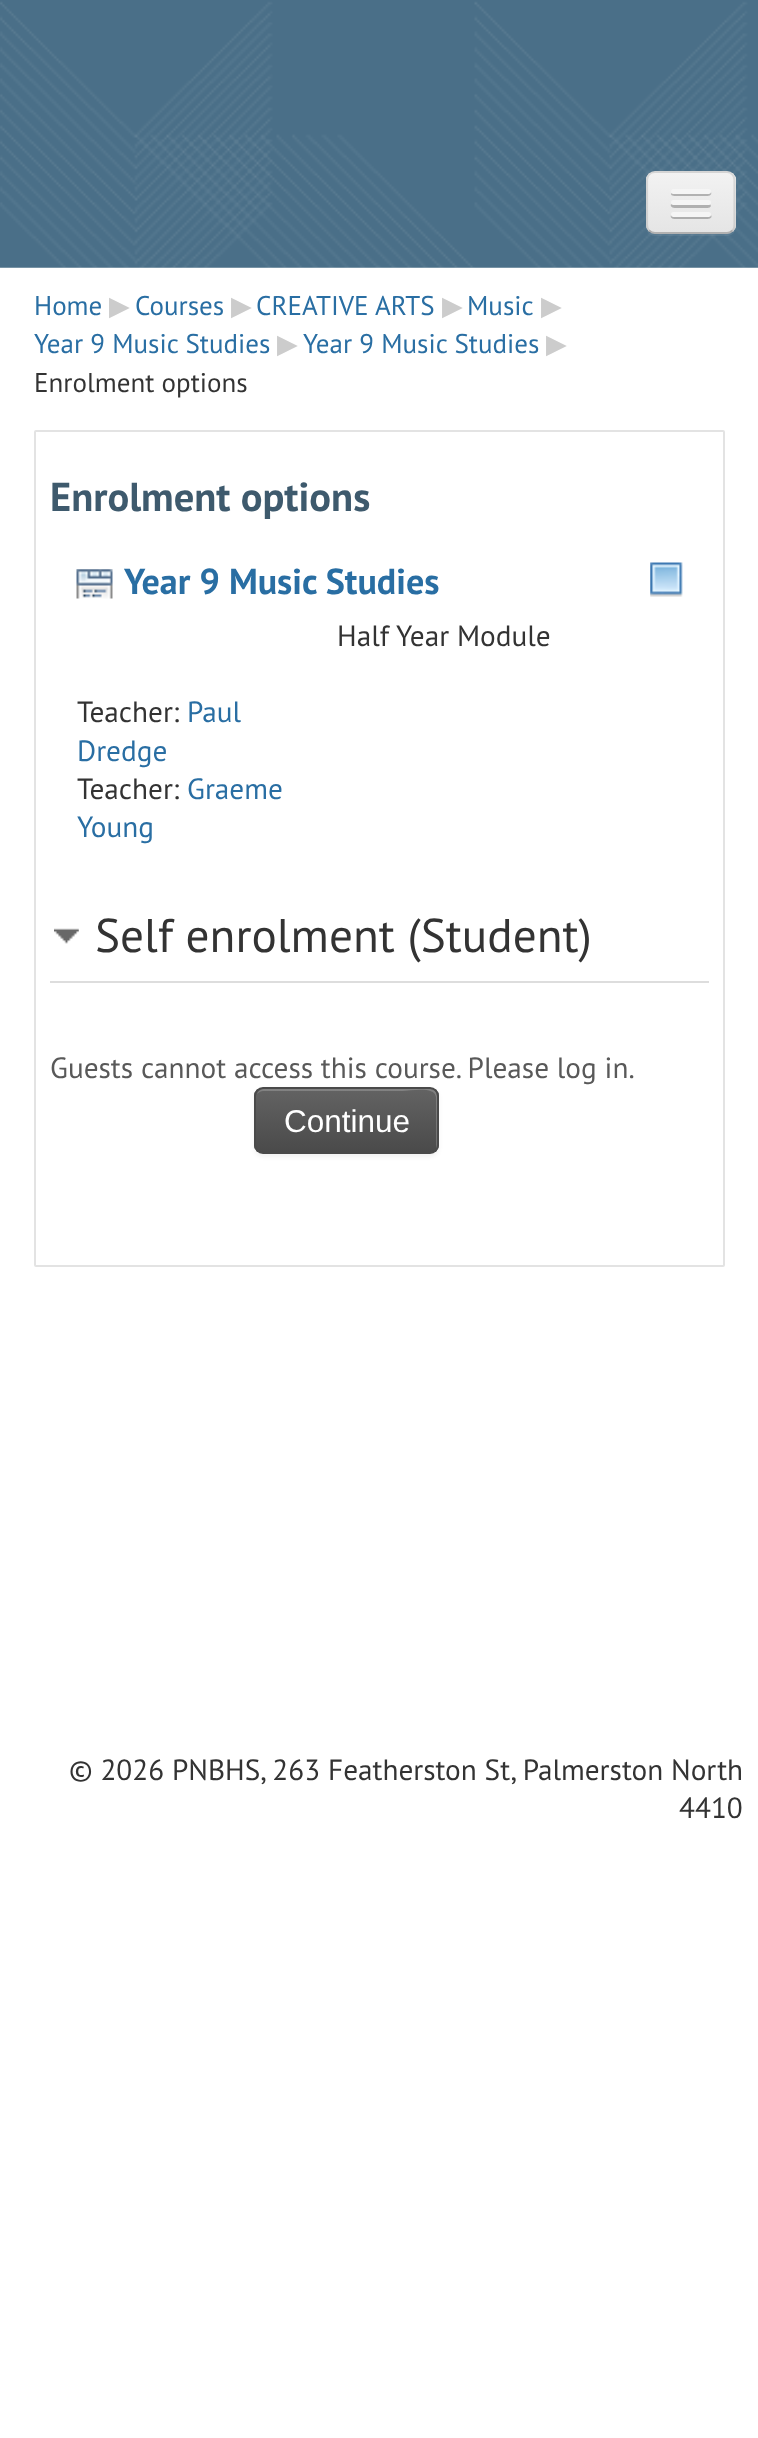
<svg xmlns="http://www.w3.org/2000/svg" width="758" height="2438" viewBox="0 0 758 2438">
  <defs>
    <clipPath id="clip1"><rect x="646" y="171" width="90" height="63" rx="9"/></clipPath>
    <linearGradient id="g1" gradientUnits="userSpaceOnUse" x1="691" y1="173" x2="691" y2="232"><stop offset="0" stop-color="rgb(242,242,242)"/><stop offset="1" stop-color="rgb(229,229,229)"/></linearGradient>
    <clipPath id="clip2"><rect x="254" y="1087" width="185" height="67" rx="9"/></clipPath>
    <linearGradient id="g2" gradientUnits="userSpaceOnUse" x1="347" y1="1089" x2="347" y2="1152"><stop offset="0" stop-color="rgb(99,99,99)"/><stop offset="1" stop-color="rgb(74,74,74)"/></linearGradient>
  </defs>
  <rect width="100%" height="100%" fill="rgb(255,255,255)"/>
  <image x="0" y="0" width="758" height="268" href="pic1.png"/>
  <path d="M646 227C646 232 650 236 655 236H727C732 236 736 232 736 227V180V225C736 230 732 234 727 234H655C651 234 647 231 646 227Z" fill="rgba(255,255,255,0.07)"/>
  <rect x="646" y="171" width="90" height="63" rx="9" fill="rgb(237,237,237)"/>
  <g clip-path="url(#clip1)">
    <rect x="646" y="173" width="90" height="59" fill="url(#g1)"/>
  </g>
  <path d="M732.5 230.5C731 232 729 233 727 233H655C652.5 233 650.5 232 649 230.5" fill="none" stroke="rgba(0,0,0,0.25)" stroke-width="2.2"/>
  <path d="M649 230.5C647.5 229 647 227 647 225V180C647 178 647.5 176 649 174.5C650.5 173 652.5 172 655 172H727C729 172 731 173 732.5 174.5C734 176 734.5 178 734.5 180V225C734.5 227 734 229 732.5 230.5" fill="none" stroke="rgba(0,0,0,0.1)" stroke-width="2.2"/>
  <path d="M671 193C670 197 678 196 679 196H703C704 196 713 197 711 192L709 193C705 194 672 194 671 193Z" fill="rgb(178,178,178)"/>
  <rect x="671" y="189" width="40" height="5" rx="2.5" fill="rgb(245,245,245)"/>
  <path d="M671 204C669 209 679 208 679 208H703C703 208 714 209 710 204L709 205C706 205 673 205 671 204Z" fill="rgb(176,176,176)"/>
  <rect x="671" y="200" width="40" height="5" rx="2.5" fill="rgb(245,245,245)"/>
  <path d="M671 215C669 220 678 219 679 219H703C703 219 714 220 711 215L709 216C705 216 673 217 671 215Z" fill="rgb(174,174,174)"/>
  <rect x="671" y="212" width="40" height="5" rx="2.5" fill="rgb(245,245,245)"/>
  <text x="34" y="315" font-family="PT Sans" font-size="27" fill="rgb(41,110,163)">Home</text>
  <text x="109" y="315" font-family="DejaVu Sans" font-size="27" fill="rgb(204,204,204)">▶︎</text>
  <text x="135" y="315" font-family="PT Sans" font-size="27" fill="rgb(41,110,163)">Courses</text>
  <text x="231" y="315" font-family="DejaVu Sans" font-size="27" fill="rgb(204,204,204)">▶︎</text>
  <text x="256" y="315" font-family="PT Sans" font-size="27" fill="rgb(41,110,163)">CREATIVE ARTS</text>
  <text x="442" y="315" font-family="DejaVu Sans" font-size="27" fill="rgb(204,204,204)">▶︎</text>
  <text x="467" y="315" font-family="PT Sans" font-size="27" fill="rgb(41,110,163)">Music</text>
  <text x="541" y="315" font-family="DejaVu Sans" font-size="27" fill="rgb(204,204,204)">▶︎</text>
  <text x="34" y="353" font-family="PT Sans" font-size="27" fill="rgb(41,110,163)">Year 9 Music Studies</text>
  <text x="277" y="353" font-family="DejaVu Sans" font-size="27" fill="rgb(204,204,204)">▶︎</text>
  <text x="303" y="353" font-family="PT Sans" font-size="27" fill="rgb(41,110,163)">Year 9 Music Studies</text>
  <text x="546" y="353" font-family="DejaVu Sans" font-size="27" fill="rgb(204,204,204)">▶︎</text>
  <text x="34" y="392" font-family="PT Sans" font-size="27" fill="rgb(51,51,51)">Enrolment options</text>
  <rect x="35" y="431" width="689" height="835" rx="1" fill="none" stroke="rgb(227,227,227)" stroke-width="2"/>
  <text x="50" y="511" font-family="PT Sans" font-size="40.5" font-weight="bold" fill="rgb(62,90,109)">Enrolment options</text>
  <image x="76" y="569" width="37" height="30" href="pic2.png"/>
  <text x="124" y="594" font-family="PT Sans" font-size="36" font-weight="bold" fill="rgb(41,110,163)">Year 9 Music Studies</text>
  <image x="650" y="562" width="33" height="35" href="pic3.png"/>
  <g font-family="PT Sans" font-size="29.25" fill="rgb(51,51,51)">
    <text x="337" y="646">Half Year Module</text>
    <text x="77" y="722">Teacher:</text>
  </g>
  <g font-family="PT Sans" font-size="29.25" fill="rgb(41,110,163)">
    <text x="187" y="722">Paul</text>
    <text x="77" y="761">Dredge</text>
  </g>
  <text x="77" y="799" font-family="PT Sans" font-size="29.25" fill="rgb(51,51,51)">Teacher:</text>
  <g font-family="PT Sans" font-size="29.25" fill="rgb(41,110,163)">
    <text x="187" y="799">Graeme</text>
    <text x="77" y="837">Young</text>
  </g>
  <rect x="50" y="981" width="659" height="2" fill="rgb(221,221,221)"/>
  <image x="54" y="928" width="25" height="16" href="pic4.png"/>
  <text x="95" y="952" font-family="PT Sans" font-size="47.25" fill="rgb(51,51,51)">Self enrolment (Student)</text>
  <text x="50" y="1078" font-family="PT Sans" font-size="29.25" fill="rgb(89,89,89)">Guests cannot access this course. Please log in.</text>
  <rect x="254" y="1089" width="185" height="68" rx="9" fill="rgba(0,0,0,0.05)" filter="blur(2px)"/>
  <g clip-path="url(#clip2)">
    <rect x="254" y="1089" width="185" height="63" fill="url(#g2)"/>
  </g>
  <path d="M263 1091H402C412 1091 434 1086 436 1097V1149C437 1148 437 1146 437 1145V1096C437 1092 434 1089 430 1089H264C261 1089 258 1091 257 1094C259 1092 261 1091 263 1091Z" fill="rgba(255,255,255,0.2)"/>
  <rect x="255" y="1088" width="183" height="65" rx="8" fill="none" stroke="rgb(74,74,74)" stroke-width="2"/>
  <text x="284" y="1132" font-family="Liberation Sans" font-size="31.5" fill="rgb(255,255,255)">Continue</text>
  <g font-family="PT Sans" font-size="29.25" fill="rgb(51,51,51)">
    <text x="69" y="1780">© 2026 PNBHS, 263 Featherston St, Palmerston North</text>
    <text x="679" y="1818">4410</text>
  </g>
</svg>
